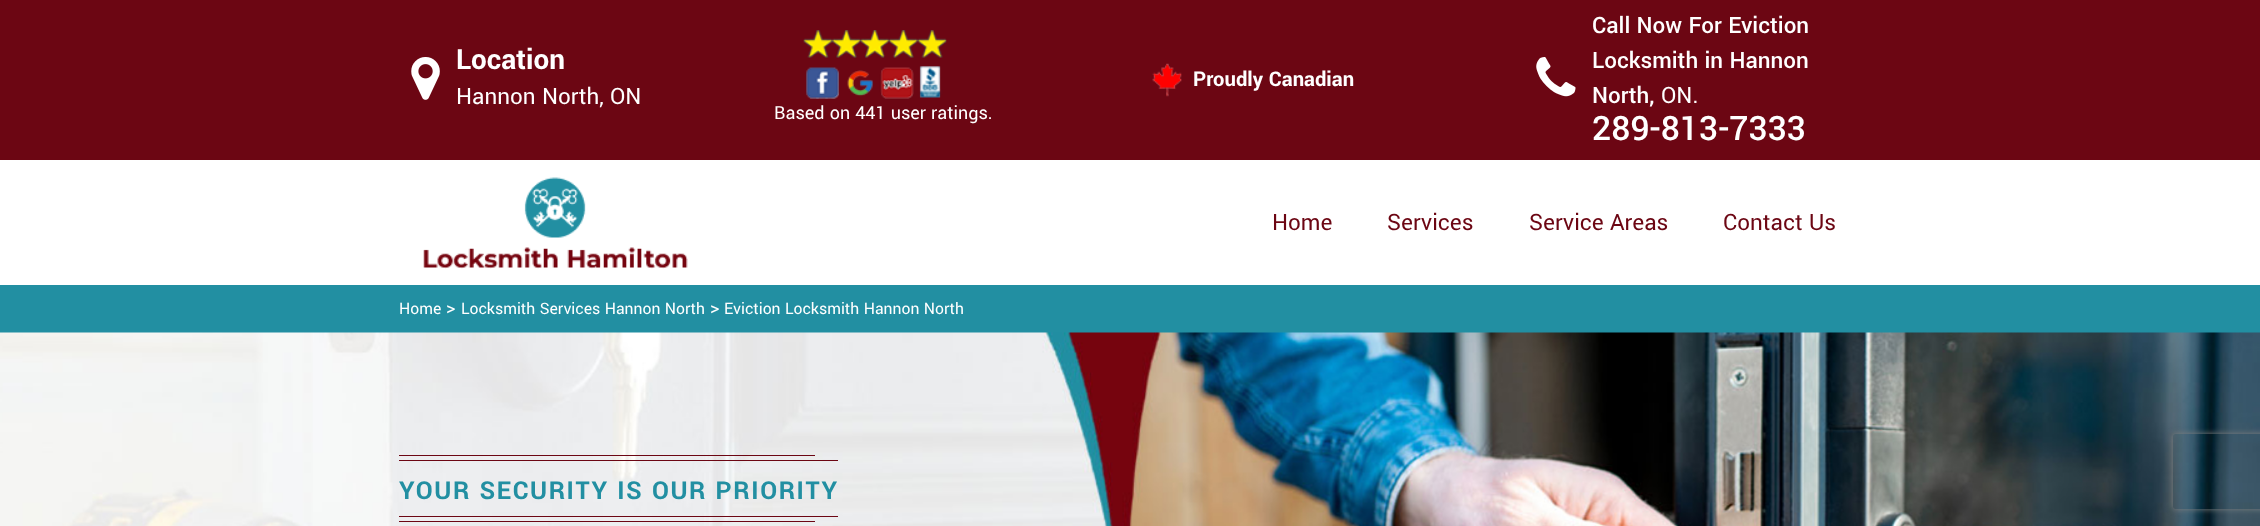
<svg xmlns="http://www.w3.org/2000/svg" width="2260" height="526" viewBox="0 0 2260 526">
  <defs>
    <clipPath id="clip1"><path d="M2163 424H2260V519H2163ZM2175.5 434H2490.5C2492 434 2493 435 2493 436.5V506.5C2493 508 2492 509 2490.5 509H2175.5C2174 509 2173 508 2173 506.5V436.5C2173 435 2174 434 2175.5 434Z" clip-rule="evenodd"/></clipPath>
  </defs>
  <rect width="100%" height="100%" fill="rgb(255,255,255)"/>
  <rect x="0" y="0" width="2260" height="160" fill="rgb(108,6,19)"/>
  <image x="411" y="57" width="29" height="43" href="pic1.png"/>
  <text x="456" y="69" font-family="Yantramanav" font-size="31" font-weight="bold" fill="rgb(255,255,255)">Location</text>
  <text x="456" y="104" font-family="Yantramanav" font-size="25" fill="rgb(255,255,255)">Hannon North, ON</text>
  <image x="1152" y="63" width="30" height="34" href="pic2.png"/>
  <text x="1193" y="86" font-family="Yantramanav" font-size="22.5" font-weight="bold" fill="rgb(255,255,255)">Proudly Canadian</text>
  <image x="1536" y="57" width="40" height="40" href="pic3.png"/>
  <g font-family="Yantramanav" font-size="25" font-weight="500" fill="rgb(255,255,255)">
    <text>
      <tspan x="1592" y="33">Call Now For Eviction</tspan>
      <tspan x="1592" y="68">Locksmith in Hannon</tspan>
      <tspan x="1592" y="103">North,</tspan>
    </text>
  </g>
  <text x="1661" y="103" font-family="Yantramanav" font-size="25" fill="rgb(255,255,255)">ON.</text>
  <text x="1592" y="140" font-family="Yantramanav" font-size="37.5" font-weight="500" fill="rgb(255,255,255)">289-813-7333</text>
  <image x="803" y="30" width="144" height="69" href="pic4.png"/>
  <text x="774" y="119" font-family="Yantramanav" font-size="20" fill="rgb(255,255,255)">Based on 441 user ratings.</text>
  <image x="423" y="177" width="265" height="92" href="pic5.png"/>
  <g font-family="Yantramanav" font-size="25" fill="rgb(108,6,19)">
    <text x="1272" y="230">Home</text>
    <text x="1387" y="230">Services</text>
    <text x="1529" y="230">Service Areas</text>
    <text x="1723" y="230">Contact Us</text>
  </g>
  <rect x="0" y="285" width="2260" height="48" fill="rgb(34,143,162)"/>
  <text x="399" y="314" font-family="Yantramanav" font-size="17.5" fill="rgb(255,255,255)">Home</text>
  <text x="446" y="314" font-family="Yantramanav" font-size="20" fill="rgb(255,255,255)">&gt;</text>
  <text x="461" y="314" font-family="Yantramanav" font-size="17.5" fill="rgb(255,255,255)">Locksmith Services Hannon North</text>
  <text x="710" y="314" font-family="Yantramanav" font-size="20" fill="rgb(255,255,255)">&gt;</text>
  <text x="724" y="314" font-family="Yantramanav" font-size="17.5" fill="rgb(255,255,255)">Eviction Locksmith Hannon North</text>
  <image x="0" y="332" width="2260" height="194" href="pic6.png"/>
  <rect x="399" y="455" width="416" height="1" fill="rgb(108,6,19)"/>
  <rect x="399" y="460" width="439" height="1" fill="rgb(108,6,19)"/>
  <text x="399" y="499" font-family="Yantramanav" font-size="27.5" font-weight="bold" letter-spacing="1.6" fill="rgb(34,143,162)">YOUR SECURITY IS OUR PRIORITY</text>
  <rect x="399" y="516" width="439" height="1" fill="rgb(108,6,19)"/>
  <rect x="399" y="521" width="416" height="1" fill="rgb(108,6,19)"/>
  <g clip-path="url(#clip1)">
    <rect x="2173" y="434" width="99" height="75" rx="2.5" fill="rgb(128,128,128)" filter="blur(3px)"/>
  </g>
</svg>
